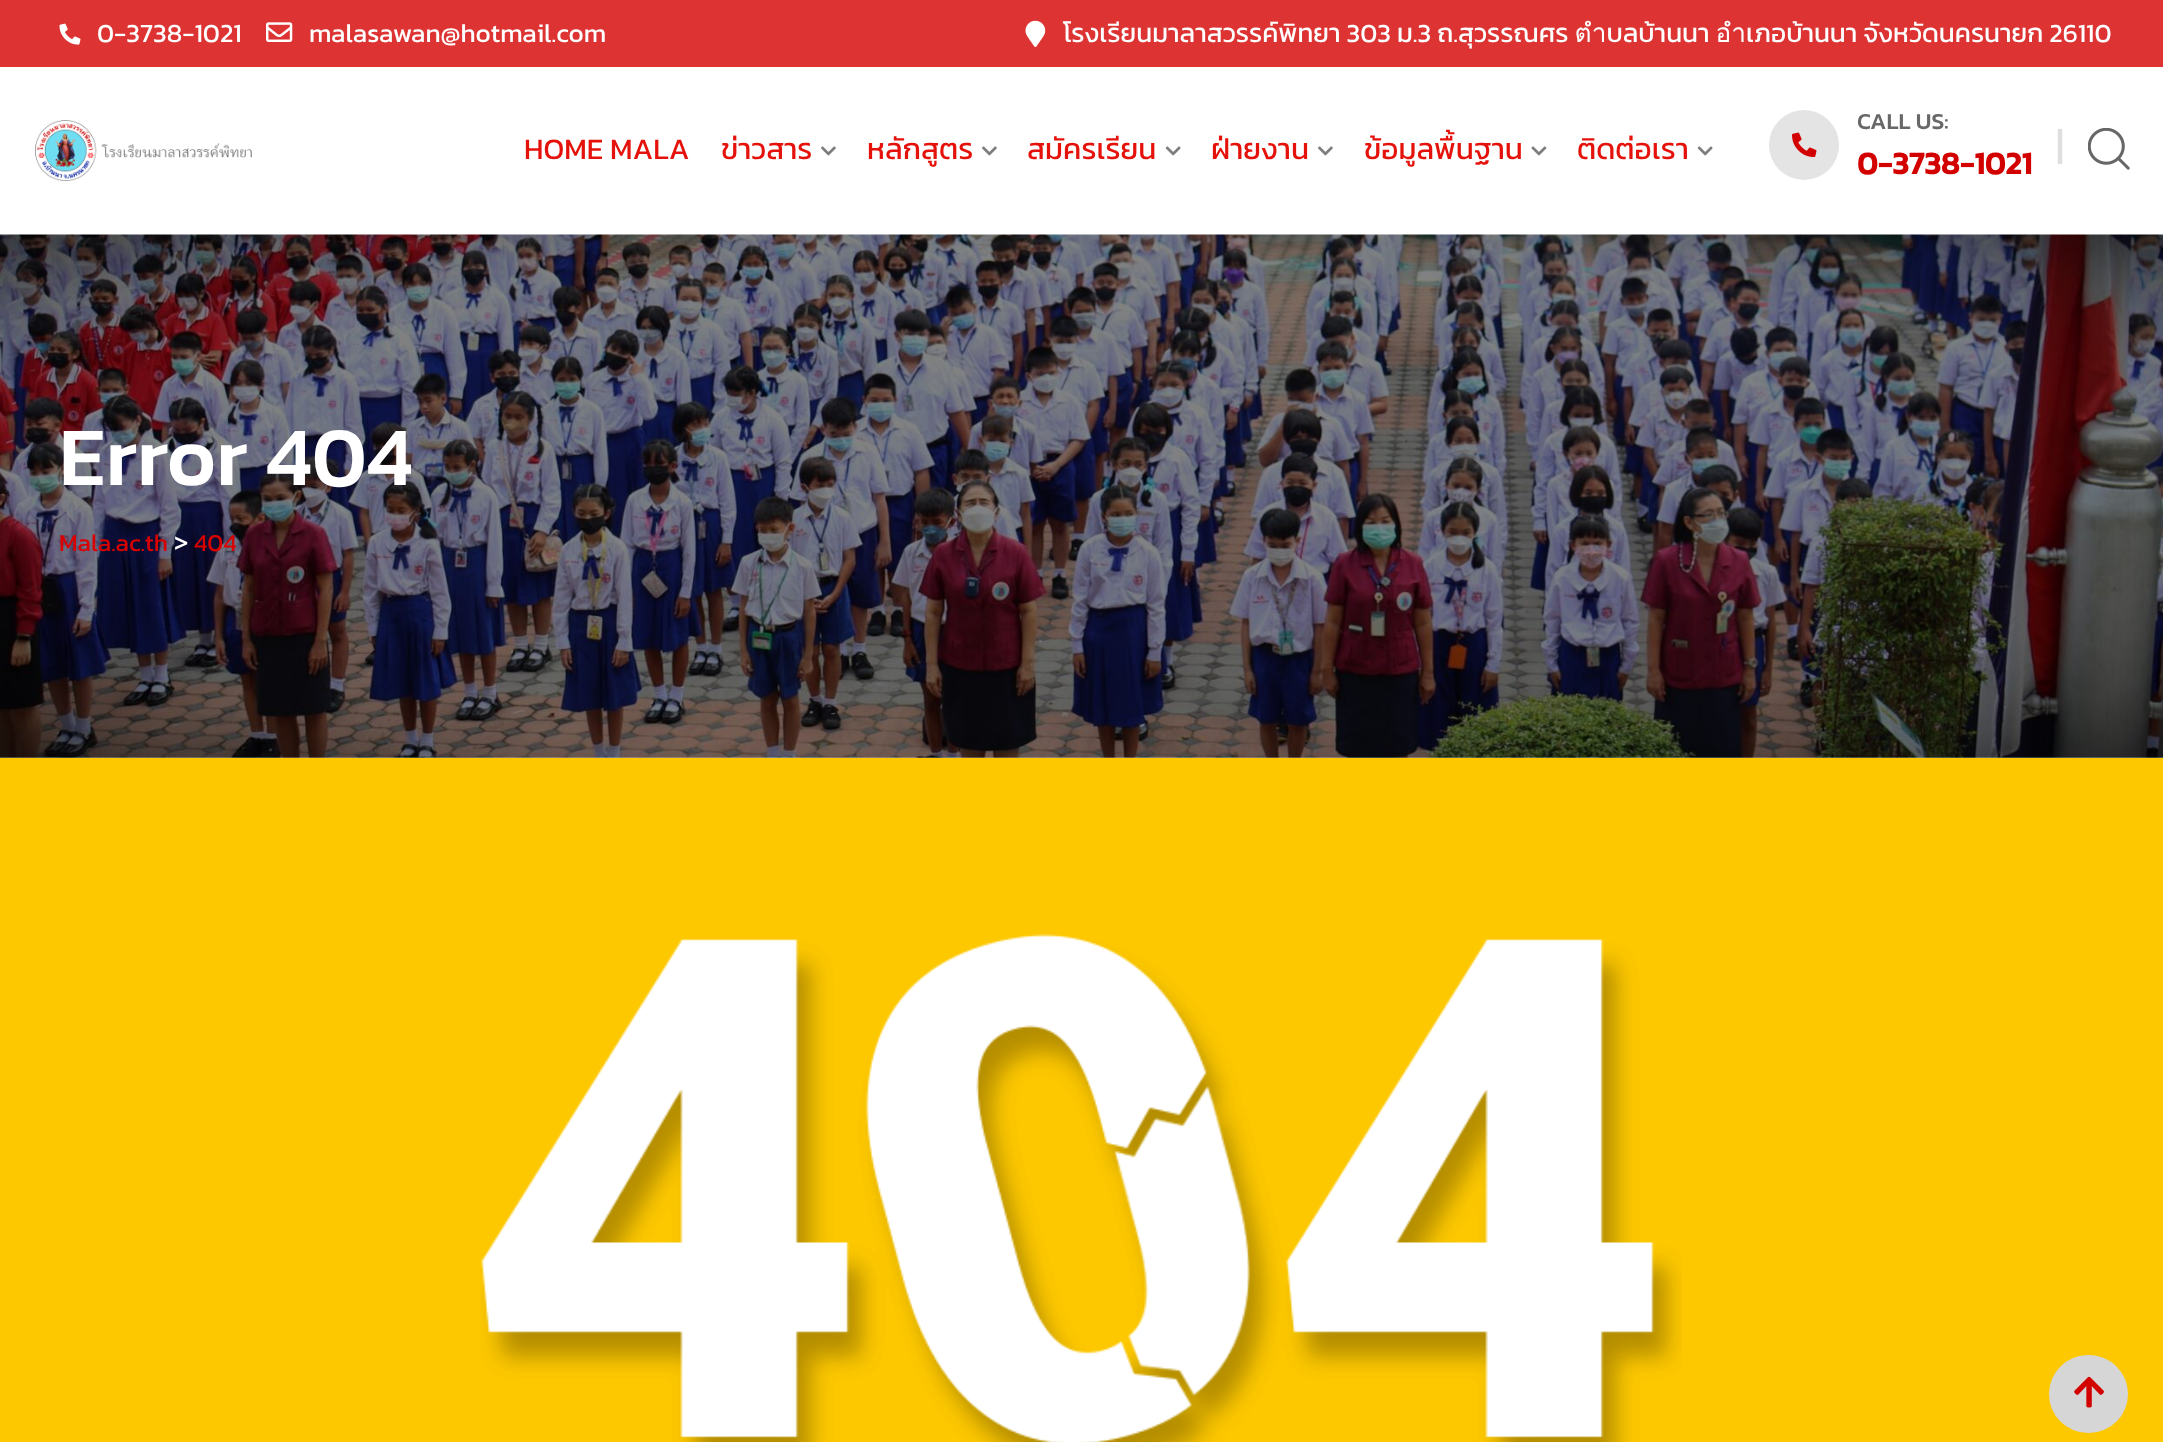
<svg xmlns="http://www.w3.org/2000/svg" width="2163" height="1442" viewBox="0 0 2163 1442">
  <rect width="100%" height="100%" fill="rgb(255,255,255)"/>
  <rect x="0" y="0" width="2163" height="67" fill="rgb(221,51,51)"/>
  <image x="59" y="23" width="22" height="22" href="pic1.png"/>
  <text x="97" y="42" font-family="Kanit" font-size="26.25" fill="rgb(255,255,255)">0-3738-1021</text>
  <image x="266" y="22" width="27" height="20" href="pic2.png"/>
  <text x="309" y="42" font-family="Kanit" font-size="26.25" fill="rgb(255,255,255)">malasawan@hotmail.com</text>
  <image x="1025" y="20" width="21" height="27" href="pic3.png"/>
  <text x="1063" y="42" font-family="Kanit" font-size="26.25" fill="rgb(255,255,255)">โรงเรียนมาลาสวรรค์พิทยา 303 ม.3 ถ.สุวรรณศร ตำบลบ้านนา อำเภอบ้านนา จังหวัดนครนายก 26110</text>
  <image x="35" y="120" width="217" height="62" href="pic4.png"/>
  <g font-family="Kanit" font-size="29.75" fill="rgb(229,18,11)">
    <text x="524" y="159">HOME MALA</text>
    <text x="721" y="159">ข่าวสาร</text>
  </g>
  <image x="821" y="146" width="15" height="10" href="pic5.png"/>
  <text x="867" y="159" font-family="Kanit" font-size="29.75" fill="rgb(229,18,11)">หลักสูตร</text>
  <image x="982" y="146" width="15" height="10" href="pic5.png"/>
  <text x="1027" y="159" font-family="Kanit" font-size="29.75" fill="rgb(229,18,11)">สมัครเรียน</text>
  <image x="1165" y="146" width="16" height="10" href="pic6.png"/>
  <text x="1211" y="159" font-family="Kanit" font-size="29.75" fill="rgb(229,18,11)">ฝ่ายงาน</text>
  <image x="1318" y="146" width="15" height="10" href="pic5.png"/>
  <text x="1364" y="159" font-family="Kanit" font-size="29.75" fill="rgb(229,18,11)">ข้อมูลพื้นฐาน</text>
  <image x="1531" y="146" width="16" height="10" href="pic7.png"/>
  <text x="1577" y="159" font-family="Kanit" font-size="29.75" fill="rgb(229,18,11)">ติดต่อเรา</text>
  <image x="1697" y="146" width="16" height="10" href="pic6.png"/>
  <circle cx="1804" cy="145" r="35" fill="rgb(228,228,228)"/>
  <image x="1792" y="132" width="25" height="26" href="pic8.png"/>
  <text x="1857" y="129" font-family="Kanit" font-size="23" font-weight="500" fill="rgb(104,104,104)">CALL US:</text>
  <text x="1857" y="174" font-family="Kanit" font-size="31.5" font-weight="bold" fill="rgb(211,0,0)">0-3738-1021</text>
  <text x="2056" y="159" font-family="Kanit" font-size="41" letter-spacing="-2" fill="rgb(223,223,223)">|</text>
  <image x="2088" y="128" width="42" height="42" href="pic9.png"/>
  <image x="0" y="234" width="2163" height="524" href="pic10.png"/>
  <text x="59" y="485" font-family="Kanit" font-size="84" font-weight="500" fill="rgb(255,255,255)">Error 404</text>
  <text x="59" y="551" font-family="Kanit" font-size="24.5" fill="rgb(219,0,0)">Mala.ac.th</text>
  <text x="174" y="551" font-family="Kanit" font-size="26.25" fill="rgb(255,255,255)">&gt;</text>
  <text x="194" y="551" font-family="Kanit" font-size="24.5" fill="rgb(219,0,0)">404</text>
  <rect x="0" y="758" width="2163" height="684" fill="rgb(253,200,0)"/>
  <image x="480" y="934" width="1202" height="508" href="pic11.png"/>
  <rect x="2049" y="1355" width="79" height="78" rx="39" fill="rgb(214,214,214)"/>
  <image x="2074" y="1376" width="30" height="32" href="pic12.png"/>
</svg>
